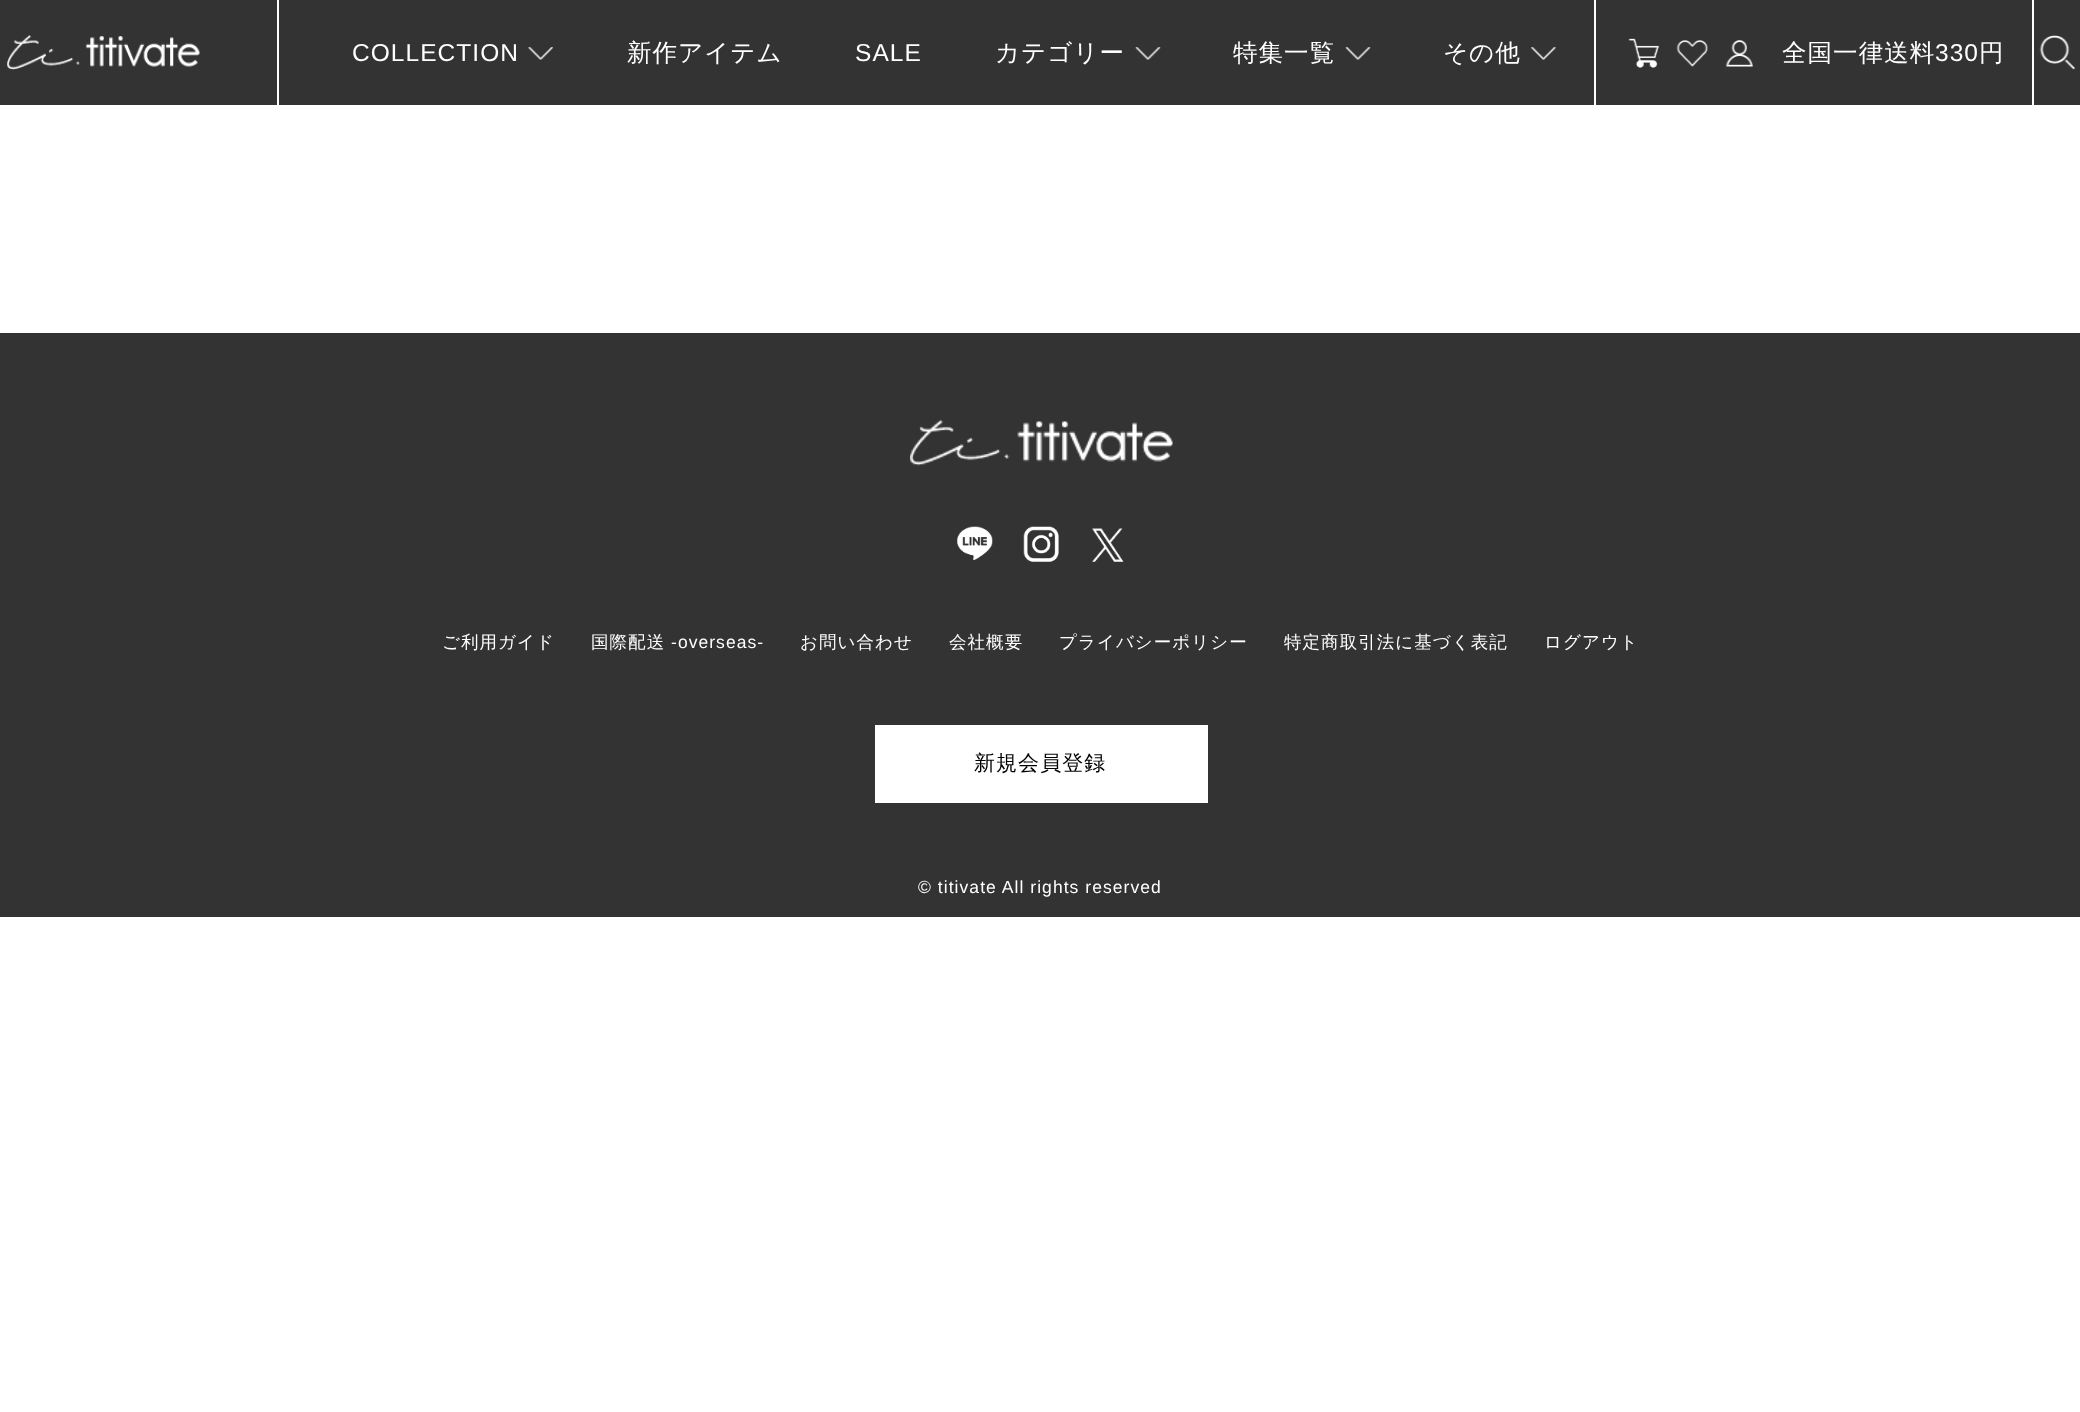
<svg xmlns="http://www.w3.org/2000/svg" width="2080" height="1412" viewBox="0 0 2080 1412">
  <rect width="100%" height="100%" fill="rgb(255,255,255)"/>
  <rect x="0" y="0" width="2080" height="105" fill="rgb(51,51,51)"/>
  <rect x="277" y="0" width="2" height="105" fill="rgb(255,255,255)"/>
  <image x="7" y="35" width="193" height="35" href="pic1.png"/>
  <text x="352" y="61" font-family="Liberation Sans" font-size="24.5" letter-spacing="1.05" fill="rgb(255,255,255)">COLLECTION</text>
  <image x="528" y="47" width="25" height="13" href="pic2.png"/>
  <text x="627" y="61" font-family="WenQuanYi Zen Hei" font-size="24.5" font-weight="500" letter-spacing="1.05" fill="rgb(255,255,255)">新作アイテム</text>
  <text x="855" y="61" font-family="Liberation Sans" font-size="24.5" letter-spacing="1.05" fill="rgb(255,255,255)">SALE</text>
  <text x="995" y="61" font-family="WenQuanYi Zen Hei" font-size="24.5" font-weight="500" letter-spacing="1.05" fill="rgb(255,255,255)">カテゴリー</text>
  <image x="1135" y="47" width="26" height="13" href="pic3.png"/>
  <text x="1233" y="61" font-family="WenQuanYi Zen Hei" font-size="24.5" font-weight="500" letter-spacing="1.05" fill="rgb(255,255,255)">特集一覧</text>
  <image x="1345" y="47" width="26" height="13" href="pic3.png"/>
  <text x="1443" y="61" font-family="WenQuanYi Zen Hei" font-size="24.5" font-weight="500" letter-spacing="1.05" fill="rgb(255,255,255)">その他</text>
  <image x="1531" y="47" width="25" height="13" href="pic4.png"/>
  <rect x="1594" y="0" width="2" height="105" fill="rgb(255,255,255)"/>
  <image x="1628" y="38" width="32" height="30" href="pic5.png"/>
  <image x="1676" y="40" width="32" height="27" href="pic6.png"/>
  <image x="1725" y="40" width="28" height="27" href="pic7.png"/>
  <rect x="2032" y="0" width="2" height="105" fill="rgb(255,255,255)"/>
  <text x="1782" y="61" font-family="WenQuanYi Zen Hei" font-size="24.5" font-weight="500" letter-spacing="1.05" fill="rgb(255,255,255)">全国一律送料</text>
  <text x="1935" y="61" font-family="Liberation Sans" font-size="24.5" letter-spacing="1.05" fill="rgb(255,255,255)">330</text>
  <text x="1979" y="61" font-family="WenQuanYi Zen Hei" font-size="24.5" font-weight="500" letter-spacing="1.05" fill="rgb(255,255,255)">円</text>
  <image x="2039" y="35" width="37" height="35" href="pic8.png"/>
  <rect x="0" y="333" width="2080" height="584" fill="rgb(51,51,51)"/>
  <image x="910" y="420" width="263" height="46" href="pic9.png"/>
  <image x="957" y="526" width="36" height="34" href="pic10.png"/>
  <image x="1023" y="526" width="36" height="36" href="pic11.png"/>
  <image x="1092" y="528" width="32" height="34" href="pic12.png"/>
  <g font-family="WenQuanYi Zen Hei" font-size="17.5" font-weight="500" letter-spacing="1.05" fill="rgb(255,255,255)">
    <text x="442" y="648">ご利用ガイド</text>
    <text x="591" y="648">国際配送</text>
  </g>
  <text x="671" y="648" font-family="Liberation Sans" font-size="17.5" letter-spacing="1.05" fill="rgb(255,255,255)">-overseas-</text>
  <g font-family="WenQuanYi Zen Hei" font-size="17.5" font-weight="500" letter-spacing="1.05" fill="rgb(255,255,255)">
    <text x="800" y="648">お問い合わせ</text>
    <text x="949" y="648">会社概要</text>
    <text x="1059" y="648">プライバシーポリシー</text>
    <text x="1284" y="648">特定商取引法に基づく表記</text>
    <text x="1544" y="648">ログアウト</text>
  </g>
  <rect x="875" y="725" width="333" height="78" fill="rgb(255,255,255)"/>
  <text x="974" y="770" font-family="WenQuanYi Zen Hei" font-size="21" font-weight="500" letter-spacing="1.05" fill="rgb(0,0,0)">新規会員登録</text>
  <text x="918" y="893" font-family="Liberation Sans" font-size="17.5" letter-spacing="1.05" fill="rgb(255,255,255)">© titivate All rights reserved</text>
</svg>
